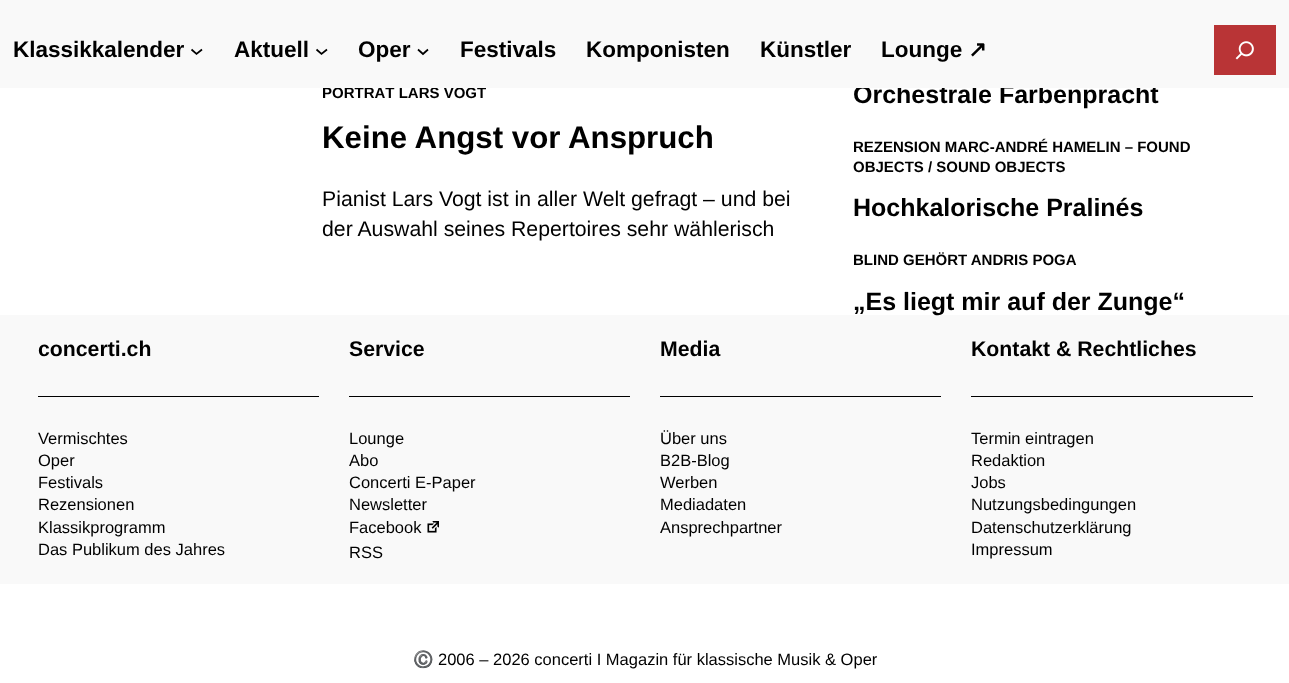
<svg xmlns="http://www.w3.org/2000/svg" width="1289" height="683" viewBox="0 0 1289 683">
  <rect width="100%" height="100%" fill="rgb(255,255,255)"/>
  <text x="322" y="98" font-family="Liberation Sans" font-size="15" font-weight="bold" fill="rgb(0,0,0)">PORTRÄT LARS VOGT</text>
  <text x="853" y="103" font-family="Liberation Sans" font-size="25" font-weight="bold" fill="rgb(0,0,0)">Orchestrale Farbenpracht</text>
  <rect x="0" y="0" width="1289" height="88" fill="rgb(249,249,249)"/>
  <text x="13" y="57" font-family="Liberation Sans" font-size="22.5" font-weight="bold" fill="rgb(0,0,0)">Klassikkalender</text>
  <path d="M191.5 49.5L196.5 54L202 49.5" fill="none" stroke="rgb(0,0,0)" stroke-width="1.7"/>
  <text x="234" y="57" font-family="Liberation Sans" font-size="22.5" font-weight="bold" fill="rgb(0,0,0)">Aktuell</text>
  <path d="M316.5 49.5L321.5 54L327 49.5" fill="none" stroke="rgb(0,0,0)" stroke-width="1.7"/>
  <text x="358" y="57" font-family="Liberation Sans" font-size="22.5" font-weight="bold" fill="rgb(0,0,0)">Oper</text>
  <path d="M418 49.5L423 54L428 49.5" fill="none" stroke="rgb(0,0,0)" stroke-width="1.7"/>
  <g font-family="Liberation Sans" font-size="22.5" font-weight="bold" fill="rgb(0,0,0)">
    <text x="460" y="57">Festivals</text>
    <text x="586" y="57">Komponisten</text>
    <text x="760" y="57">Künstler</text>
    <text x="881" y="57">Lounge</text>
  </g>
  <text x="968" y="57" font-family="DejaVu Sans" font-size="22.5" font-weight="bold" fill="rgb(0,0,0)">↗</text>
  <rect x="1214" y="25" width="62" height="50" fill="rgb(185,52,54)"/>
  <image x="1235" y="41" width="19" height="19" href="pic1.png"/>
  <text x="322" y="148" font-family="Liberation Sans" font-size="31.25" font-weight="bold" fill="rgb(0,0,0)">Keine Angst vor Anspruch</text>
  <g font-family="Liberation Sans" font-size="21.25" fill="rgb(0,0,0)">
    <text>
      <tspan x="322" y="206">Pianist Lars Vogt ist in aller Welt gefragt – und bei</tspan>
      <tspan x="322" y="236">der Auswahl seines Repertoires sehr wählerisch</tspan>
    </text>
  </g>
  <g font-family="Liberation Sans" font-size="15" font-weight="bold" fill="rgb(0,0,0)">
    <text>
      <tspan x="853" y="152">REZENSION MARC-ANDRÉ HAMELIN – FOUND</tspan>
      <tspan x="853" y="172">OBJECTS / SOUND OBJECTS</tspan>
    </text>
  </g>
  <text x="853" y="216" font-family="Liberation Sans" font-size="25" font-weight="bold" fill="rgb(0,0,0)">Hochkalorische Pralinés</text>
  <text x="853" y="265" font-family="Liberation Sans" font-size="15" font-weight="bold" fill="rgb(0,0,0)">BLIND GEHÖRT ANDRIS POGA</text>
  <rect x="0" y="315" width="1289" height="269" fill="rgb(249,249,249)"/>
  <text x="853" y="310" font-family="Liberation Sans" font-size="25" font-weight="bold" fill="rgb(0,0,0)">„Es liegt mir auf der Zunge“</text>
  <text x="38" y="356" font-family="Liberation Sans" font-size="21.25" font-weight="bold" fill="rgb(0,0,0)">concerti.ch</text>
  <rect x="38" y="396" width="281" height="1" fill="rgb(0,0,0)"/>
  <g font-family="Liberation Sans" font-size="16.5" fill="rgb(0,0,0)">
    <text>
      <tspan x="38" y="444">Vermischtes</tspan>
      <tspan x="38" y="466">Oper</tspan>
      <tspan x="38" y="488">Festivals</tspan>
      <tspan x="38" y="510">Rezensionen</tspan>
      <tspan x="38" y="533">Klassikprogramm</tspan>
      <tspan x="38" y="555">Das Publikum des Jahres</tspan>
    </text>
  </g>
  <text x="349" y="356" font-family="Liberation Sans" font-size="21.25" font-weight="bold" fill="rgb(0,0,0)">Service</text>
  <rect x="349" y="396" width="281" height="1" fill="rgb(0,0,0)"/>
  <g font-family="Liberation Sans" font-size="16.5" fill="rgb(0,0,0)">
    <text>
      <tspan x="349" y="444">Lounge</tspan>
      <tspan x="349" y="466">Abo</tspan>
      <tspan x="349" y="488">Concerti E-Paper</tspan>
      <tspan x="349" y="510">Newsletter</tspan>
      <tspan x="349" y="533">Facebook</tspan>
    </text>
  </g>
  <image x="427" y="521" width="12" height="12" href="pic2.png"/>
  <text x="349" y="558" font-family="Liberation Sans" font-size="16.5" fill="rgb(0,0,0)">RSS</text>
  <text x="660" y="356" font-family="Liberation Sans" font-size="21.25" font-weight="bold" fill="rgb(0,0,0)">Media</text>
  <rect x="660" y="396" width="281" height="1" fill="rgb(0,0,0)"/>
  <g font-family="Liberation Sans" font-size="16.5" fill="rgb(0,0,0)">
    <text>
      <tspan x="660" y="444">Über uns</tspan>
      <tspan x="660" y="466">B2B-Blog</tspan>
      <tspan x="660" y="488">Werben</tspan>
      <tspan x="660" y="510">Mediadaten</tspan>
      <tspan x="660" y="533">Ansprechpartner</tspan>
    </text>
  </g>
  <text x="971" y="356" font-family="Liberation Sans" font-size="21.25" font-weight="bold" fill="rgb(0,0,0)">Kontakt &amp; Rechtliches</text>
  <rect x="971" y="396" width="282" height="1" fill="rgb(0,0,0)"/>
  <g font-family="Liberation Sans" font-size="16.5" fill="rgb(0,0,0)">
    <text>
      <tspan x="971" y="444">Termin eintragen</tspan>
      <tspan x="971" y="466">Redaktion</tspan>
      <tspan x="971" y="488">Jobs</tspan>
      <tspan x="971" y="510">Nutzungsbedingungen</tspan>
      <tspan x="971" y="533">Datenschutzerklärung</tspan>
      <tspan x="971" y="555">Impressum</tspan>
    </text>
  </g>
  <text x="413" y="665" font-family="Noto Color Emoji" font-size="16.5" fill="rgb(0,0,0)">©️</text>
  <text x="438" y="665" font-family="Liberation Sans" font-size="16.5" fill="rgb(0,0,0)">2006 – 2026 concerti I Magazin für klassische Musik &amp; Oper</text>
</svg>
